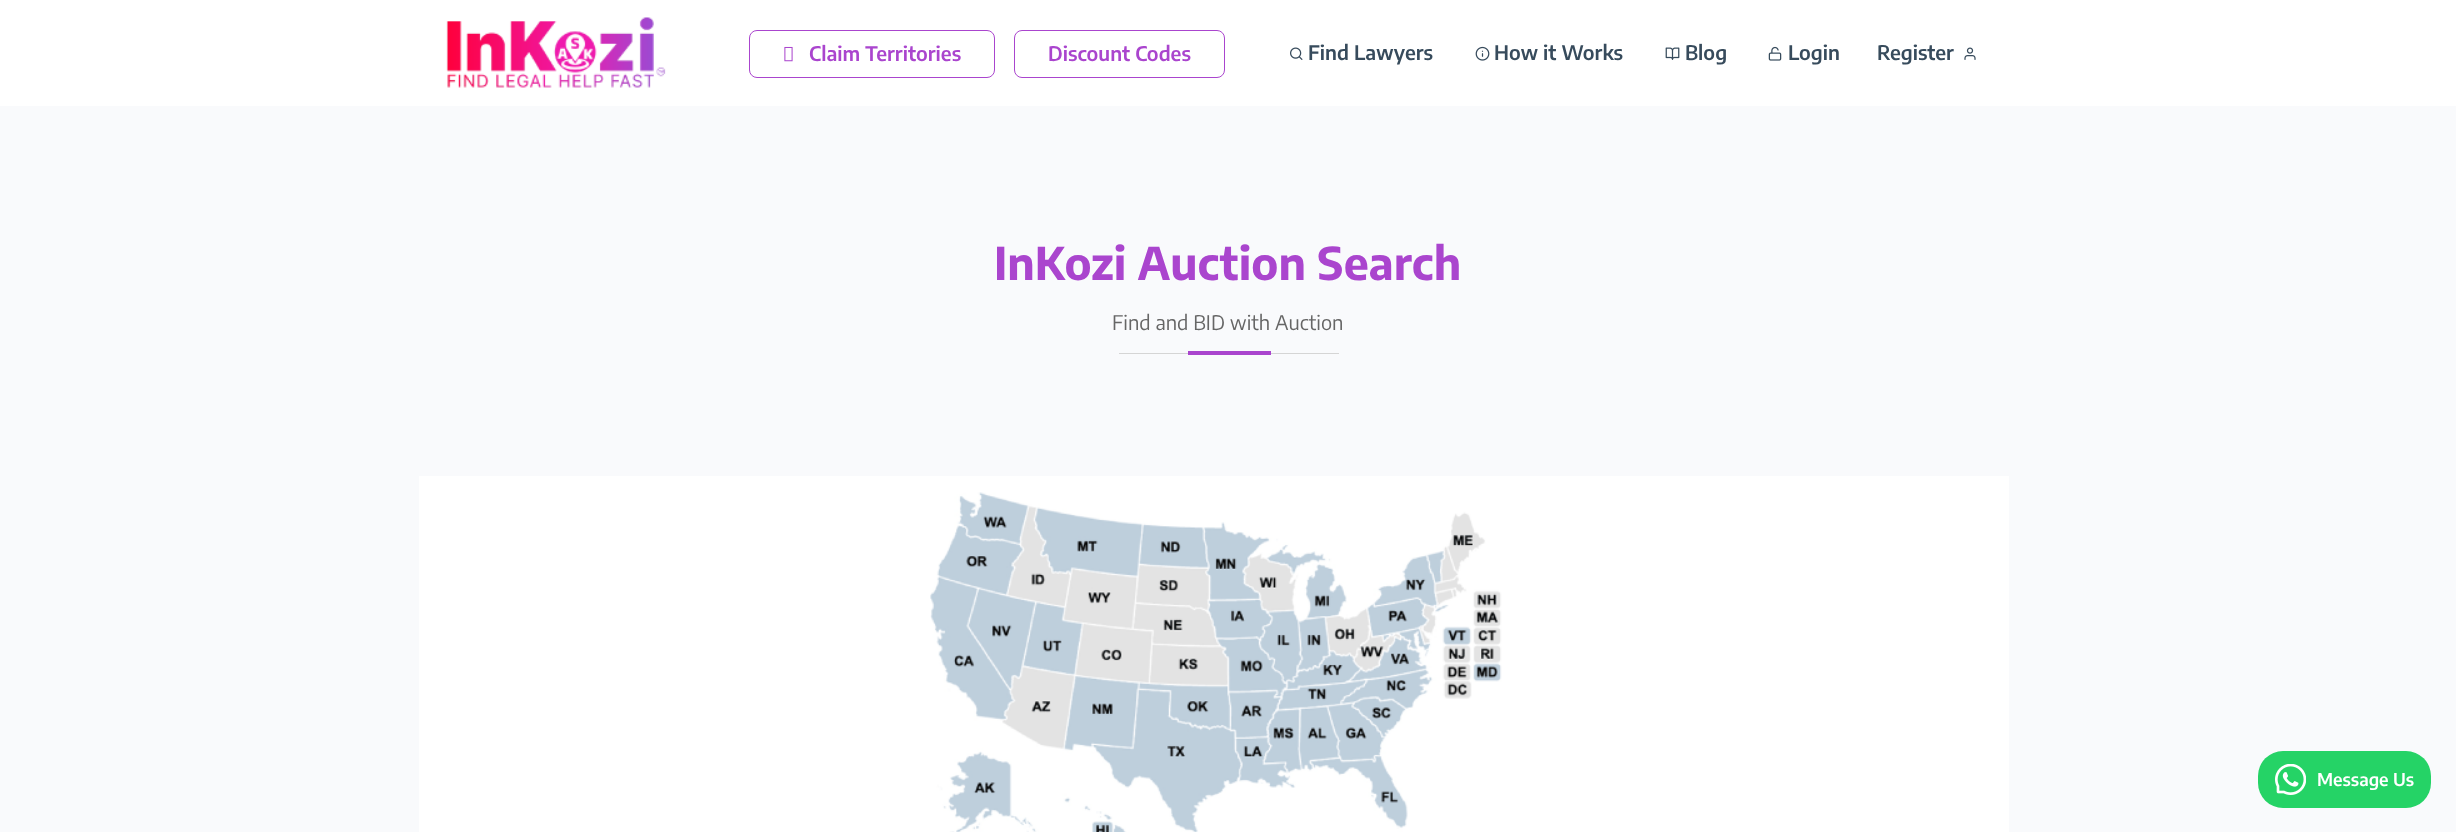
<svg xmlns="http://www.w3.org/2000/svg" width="2456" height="832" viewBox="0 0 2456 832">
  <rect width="100%" height="100%" fill="rgb(249,250,252)"/>
  <rect x="0" y="0" width="2456" height="106" fill="rgb(255,255,255)"/>
  <image x="446" y="17" width="220" height="71" href="pic1.png"/>
  <rect x="749.5" y="30.5" width="245" height="47" rx="7.5" fill="none" stroke="rgb(170,69,206)"/>
  <image x="784" y="46" width="9" height="16" href="pic2.png"/>
  <text x="809" y="61" font-family="Encode Sans Condensed" font-size="20" font-weight="600" fill="rgb(170,69,206)">Claim Territories</text>
  <rect x="1014.5" y="30.5" width="210" height="47" rx="7.5" fill="none" stroke="rgb(170,69,206)"/>
  <text x="1048" y="61" font-family="Encode Sans Condensed" font-size="20" font-weight="600" fill="rgb(170,69,206)">Discount Codes</text>
  <image x="1290" y="47" width="13" height="13" href="pic3.png"/>
  <text x="1308" y="60" font-family="Encode Sans Condensed" font-size="20" font-weight="600" fill="rgb(55,75,92)">Find Lawyers</text>
  <image x="1475" y="46" width="15" height="15" href="pic4.png"/>
  <text x="1494" y="60" font-family="Encode Sans Condensed" font-size="20" font-weight="600" fill="rgb(55,75,92)">How it Works</text>
  <image x="1665" y="47" width="15" height="13" href="pic5.png"/>
  <text x="1685" y="60" font-family="Encode Sans Condensed" font-size="20" font-weight="600" fill="rgb(55,75,92)">Blog</text>
  <image x="1768" y="46" width="14" height="15" href="pic6.png"/>
  <g font-family="Encode Sans Condensed" font-size="20" font-weight="600" fill="rgb(55,75,92)">
    <text x="1788" y="60">Login</text>
    <text x="1877" y="60">Register</text>
  </g>
  <image x="1964" y="47" width="12" height="13" href="pic7.png"/>
  <text x="994" y="280" font-family="Encode Sans Condensed" font-size="45" font-weight="bold" fill="rgb(170,69,206)">InKozi Auction Search</text>
  <text x="1112" y="330" font-family="Encode Sans Condensed" font-size="20" fill="rgb(102,102,102)">Find and BID with Auction</text>
  <rect x="1119" y="353" width="220" height="1" fill="rgb(213,213,213)"/>
  <rect x="1188" y="351" width="83" height="4" fill="rgb(170,69,206)"/>
  <rect x="419" y="476" width="1590" height="356" fill="rgb(255,255,255)"/>
  <image x="930" y="492" width="572" height="340" href="pic8.png"/>
  <rect x="2258" y="751" width="173" height="57" rx="25" fill="rgb(37,211,102)"/>
  <image x="2275" y="764" width="31" height="31" href="pic9.png"/>
  <text x="2317" y="786" font-family="Encode Sans Condensed" font-size="17.5" font-weight="600" fill="rgb(255,255,255)">Message Us</text>
</svg>
